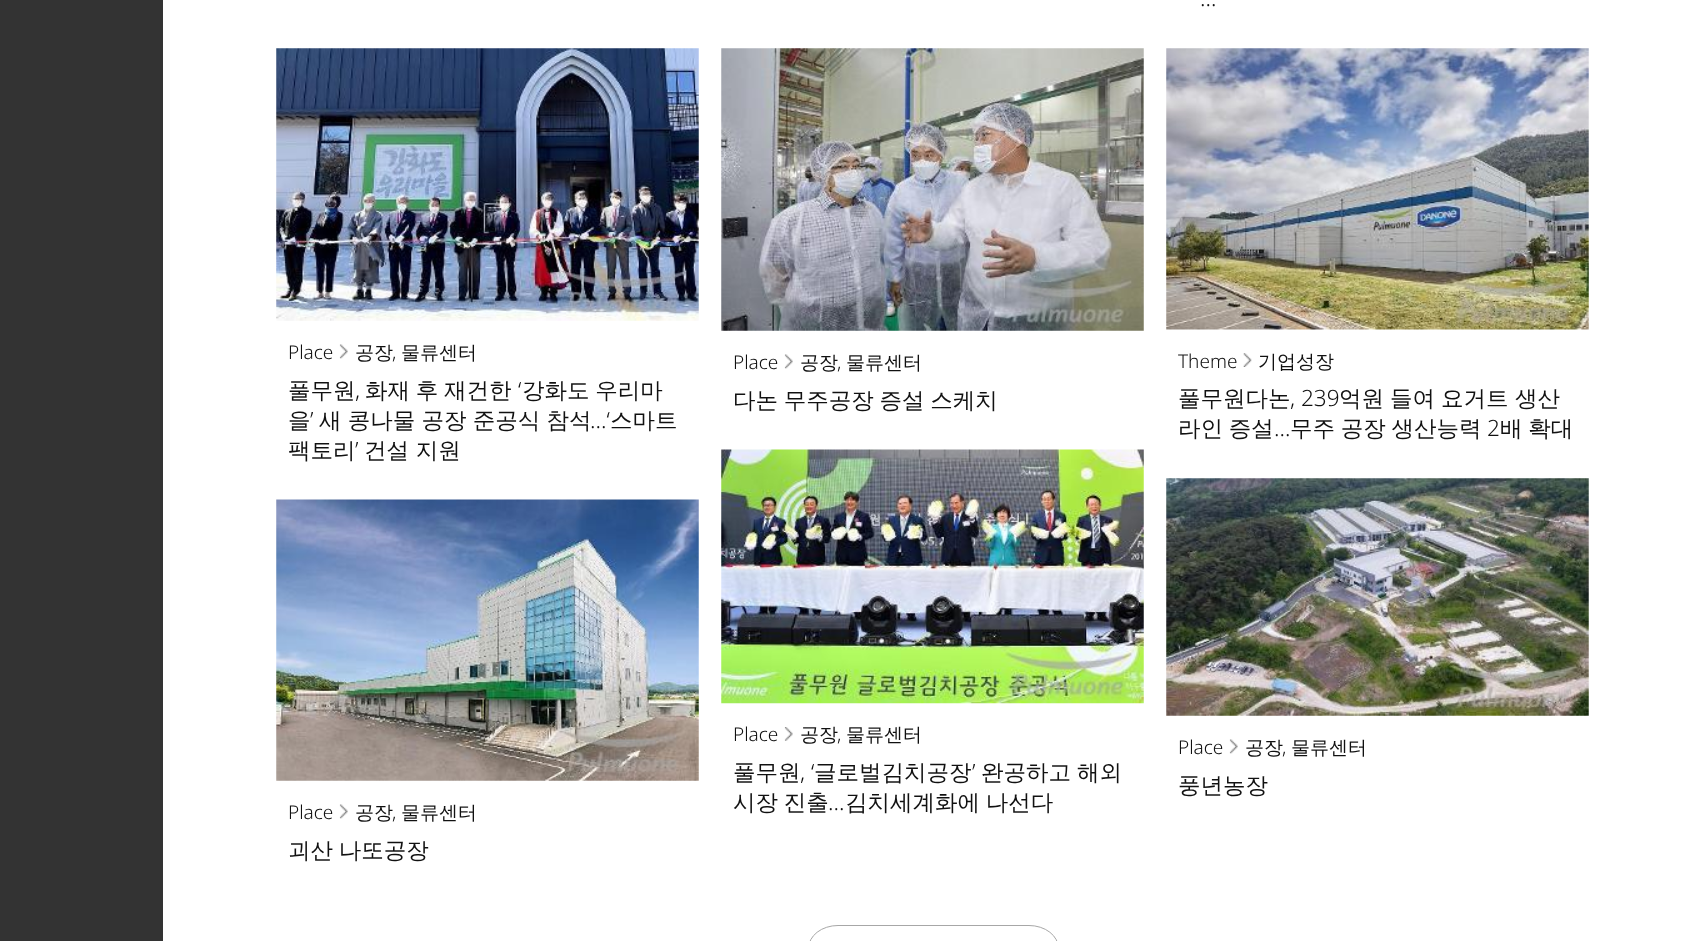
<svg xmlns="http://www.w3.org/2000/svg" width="1702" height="941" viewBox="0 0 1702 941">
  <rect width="100%" height="100%" fill="rgb(255,255,255)"/>
  <rect x="0" y="0" width="163" height="941" fill="rgb(51,51,51)"/>
  <text x="1200" y="6" font-family="Noto Sans" font-size="22.5" font-weight="300" fill="rgb(17,17,17)">…</text>
  <image x="276" y="48" width="423" height="273" href="pic1.png"/>
  <text x="288" y="359" font-family="Noto Sans" font-size="19" font-weight="300" fill="rgb(17,17,17)">Place</text>
  <image x="339" y="344" width="9" height="15" href="pic2.png"/>
  <text x="355" y="359" font-family="WenQuanYi Zen Hei" font-size="19" font-weight="500" fill="rgb(17,17,17)">공장</text>
  <text x="392" y="359" font-family="Noto Sans" font-size="19" font-weight="300" fill="rgb(17,17,17)">,</text>
  <text x="401" y="359" font-family="WenQuanYi Zen Hei" font-size="19" font-weight="500" fill="rgb(17,17,17)">물류센터</text>
  <text x="288" y="398" font-family="WenQuanYi Zen Hei" font-size="22.5" font-weight="500" fill="rgb(17,17,17)">풀무원</text>
  <text x="355" y="398" font-family="Noto Sans" font-size="22.5" font-weight="300" fill="rgb(17,17,17)">,</text>
  <text x="365" y="398" word-spacing="-1" font-family="WenQuanYi Zen Hei" font-size="22.5" font-weight="500" fill="rgb(17,17,17)">화재 후 재건한</text>
  <text x="518" y="398" font-family="Noto Sans" font-size="22.5" font-weight="300" fill="rgb(17,17,17)">‘</text>
  <g font-family="WenQuanYi Zen Hei" font-size="22.5" font-weight="500" fill="rgb(17,17,17)">
    <text x="522" y="398" word-spacing="-1">강화도 우리마</text>
    <text x="288" y="428">을</text>
  </g>
  <text x="310" y="428" font-family="Noto Sans" font-size="22.5" font-weight="300" fill="rgb(17,17,17)">’</text>
  <text x="319" y="428" word-spacing="-0.5" font-family="WenQuanYi Zen Hei" font-size="22.5" font-weight="500" fill="rgb(17,17,17)">새 콩나물 공장 준공식 참석</text>
  <text x="590" y="428" font-family="Noto Sans" font-size="22.5" font-weight="300" fill="rgb(17,17,17)">...‘</text>
  <g font-family="WenQuanYi Zen Hei" font-size="22.5" font-weight="500" fill="rgb(17,17,17)">
    <text x="610" y="428">스마트</text>
    <text x="288" y="458">팩토리</text>
  </g>
  <text x="355" y="458" font-family="Noto Sans" font-size="22.5" font-weight="300" fill="rgb(17,17,17)">’</text>
  <text x="364" y="458" font-family="WenQuanYi Zen Hei" font-size="22.5" font-weight="500" fill="rgb(17,17,17)">건설 지원</text>
  <image x="721" y="48" width="423" height="283" href="pic3.png"/>
  <text x="733" y="369" font-family="Noto Sans" font-size="19" font-weight="300" fill="rgb(17,17,17)">Place</text>
  <image x="784" y="354" width="9" height="15" href="pic2.png"/>
  <text x="800" y="369" font-family="WenQuanYi Zen Hei" font-size="19" font-weight="500" fill="rgb(17,17,17)">공장</text>
  <text x="837" y="369" font-family="Noto Sans" font-size="19" font-weight="300" fill="rgb(17,17,17)">,</text>
  <text x="846" y="369" font-family="WenQuanYi Zen Hei" font-size="19" font-weight="500" fill="rgb(17,17,17)">물류센터</text>
  <text x="733" y="408" word-spacing="-1" font-family="WenQuanYi Zen Hei" font-size="22.5" font-weight="500" fill="rgb(17,17,17)">다논 무주공장 증설 스케치</text>
  <image x="1166" y="48" width="423" height="282" href="pic4.png"/>
  <text x="1178" y="368" font-family="Noto Sans" font-size="19" font-weight="300" fill="rgb(17,17,17)">Theme</text>
  <image x="1243" y="353" width="9" height="14" href="pic5.png"/>
  <text x="1258" y="368" font-family="WenQuanYi Zen Hei" font-size="19" font-weight="500" fill="rgb(17,17,17)">기업성장</text>
  <text x="1178" y="406" font-family="WenQuanYi Zen Hei" font-size="22.5" font-weight="500" fill="rgb(17,17,17)">풀무원다논</text>
  <text x="1290" y="406" font-family="Noto Sans" font-size="22.5" font-weight="300" fill="rgb(17,17,17)">, 239</text>
  <g font-family="WenQuanYi Zen Hei" font-size="22.5" font-weight="500" fill="rgb(17,17,17)">
    <text x="1339" y="406">억원</text>
    <text x="1390" y="406">들여</text>
    <text x="1441" y="406">요거트</text>
    <text x="1515" y="406">생산</text>
    <text x="1178" y="436" word-spacing="-1">라인 증설</text>
  </g>
  <text x="1274" y="436" font-family="Noto Sans" font-size="22.5" font-weight="300" fill="rgb(17,17,17)">…</text>
  <text x="1290" y="436" word-spacing="-1" font-family="WenQuanYi Zen Hei" font-size="22.5" font-weight="500" fill="rgb(17,17,17)">무주 공장 생산능력</text>
  <text x="1487" y="436" font-family="Noto Sans" font-size="22.5" font-weight="300" fill="rgb(17,17,17)">2</text>
  <text x="1500" y="436" word-spacing="-1" font-family="WenQuanYi Zen Hei" font-size="22.5" font-weight="500" fill="rgb(17,17,17)">배 확대</text>
  <image x="721" y="449" width="423" height="255" href="pic6.png"/>
  <text x="733" y="741" font-family="Noto Sans" font-size="19" font-weight="300" fill="rgb(17,17,17)">Place</text>
  <image x="784" y="727" width="9" height="14" href="pic7.png"/>
  <text x="800" y="741" font-family="WenQuanYi Zen Hei" font-size="19" font-weight="500" fill="rgb(17,17,17)">공장</text>
  <text x="837" y="741" font-family="Noto Sans" font-size="19" font-weight="300" fill="rgb(17,17,17)">,</text>
  <text x="846" y="741" font-family="WenQuanYi Zen Hei" font-size="19" font-weight="500" fill="rgb(17,17,17)">물류센터</text>
  <text x="733" y="780" font-family="WenQuanYi Zen Hei" font-size="22.5" font-weight="500" fill="rgb(17,17,17)">풀무원</text>
  <text x="800" y="780" font-family="Noto Sans" font-size="22.5" font-weight="300" fill="rgb(17,17,17)">, ‘</text>
  <text x="814" y="780" font-family="WenQuanYi Zen Hei" font-size="22.5" font-weight="500" fill="rgb(17,17,17)">글로벌김치공장</text>
  <text x="972" y="780" font-family="Noto Sans" font-size="22.5" font-weight="300" fill="rgb(17,17,17)">’</text>
  <g font-family="WenQuanYi Zen Hei" font-size="22.5" font-weight="500" fill="rgb(17,17,17)">
    <text x="981" y="780">완공하고</text>
    <text x="1077" y="780">해외</text>
    <text x="733" y="810" word-spacing="-1">시장 진출</text>
  </g>
  <text x="828" y="810" font-family="Noto Sans" font-size="22.5" font-weight="300" fill="rgb(17,17,17)">...</text>
  <text x="845" y="810" word-spacing="-1" font-family="WenQuanYi Zen Hei" font-size="22.5" font-weight="500" fill="rgb(17,17,17)">김치세계화에 나선다</text>
  <image x="1166" y="478" width="423" height="238" href="pic8.png"/>
  <text x="1178" y="754" font-family="Noto Sans" font-size="19" font-weight="300" fill="rgb(17,17,17)">Place</text>
  <image x="1229" y="739" width="9" height="15" href="pic2.png"/>
  <text x="1245" y="754" font-family="WenQuanYi Zen Hei" font-size="19" font-weight="500" fill="rgb(17,17,17)">공장</text>
  <text x="1282" y="754" font-family="Noto Sans" font-size="19" font-weight="300" fill="rgb(17,17,17)">,</text>
  <text x="1291" y="754" font-family="WenQuanYi Zen Hei" font-size="19" font-weight="500" fill="rgb(17,17,17)">물류센터</text>
  <text x="1178" y="793" font-family="WenQuanYi Zen Hei" font-size="22.5" font-weight="500" fill="rgb(17,17,17)">풍년농장</text>
  <image x="276" y="499" width="423" height="282" href="pic9.png"/>
  <text x="288" y="819" font-family="Noto Sans" font-size="19" font-weight="300" fill="rgb(17,17,17)">Place</text>
  <image x="339" y="804" width="9" height="15" href="pic2.png"/>
  <text x="355" y="819" font-family="WenQuanYi Zen Hei" font-size="19" font-weight="500" fill="rgb(17,17,17)">공장</text>
  <text x="392" y="819" font-family="Noto Sans" font-size="19" font-weight="300" fill="rgb(17,17,17)">,</text>
  <text x="401" y="819" font-family="WenQuanYi Zen Hei" font-size="19" font-weight="500" fill="rgb(17,17,17)">물류센터</text>
  <text x="288" y="858" word-spacing="-1" font-family="WenQuanYi Zen Hei" font-size="22.5" font-weight="500" fill="rgb(17,17,17)">괴산 나또공장</text>
  <rect x="808.5" y="925.5" width="250" height="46" rx="29.5" fill="none" stroke="rgb(167,167,167)"/>
</svg>
